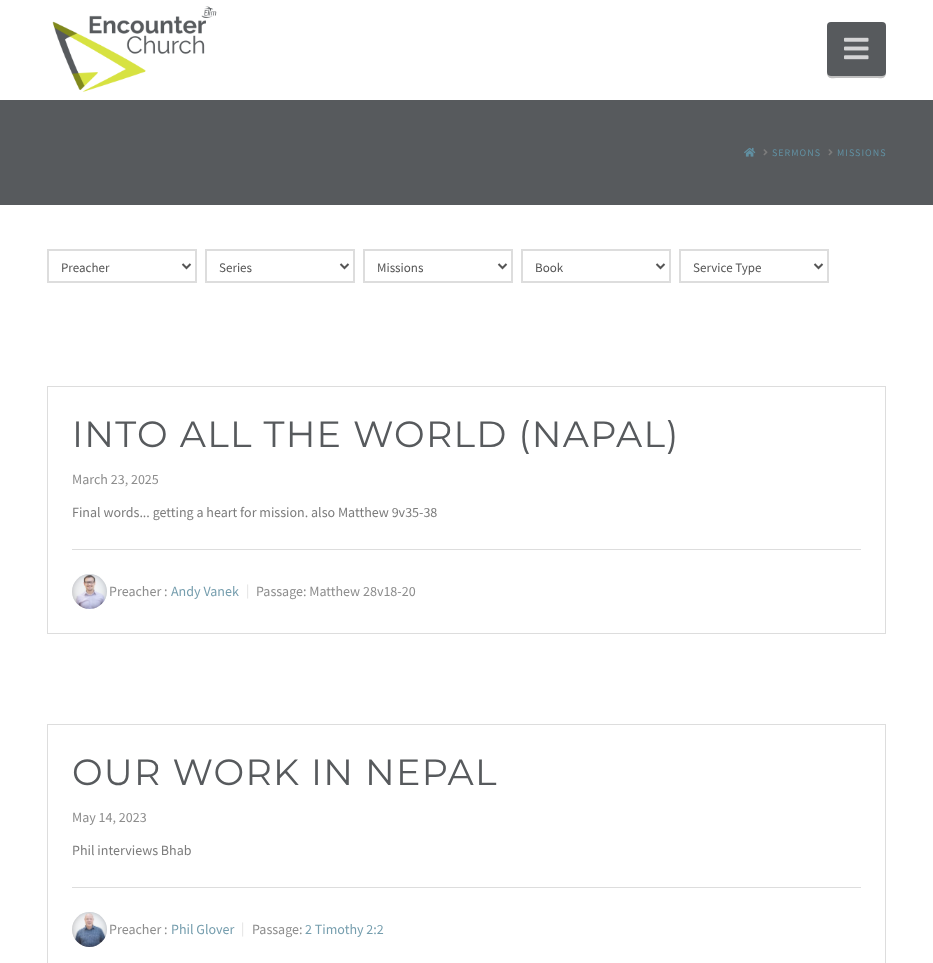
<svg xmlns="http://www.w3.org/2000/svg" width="933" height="963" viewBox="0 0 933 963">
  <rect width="100%" height="100%" fill="rgb(255,255,255)"/>
  <image x="52" y="6" width="165" height="86" href="pic1.png"/>
  <path d="M827 72C827 80 832 78 840 78H874C881 78 886 80 886 72C886 74 884 76 882 76H831C829 76 827 74 827 72Z" fill="rgb(191,191,191)"/>
  <rect x="827" y="22" width="59" height="54" rx="4" fill="rgb(87,90,93)"/>
  <image x="844" y="37" width="25" height="23" href="pic2.png"/>
  <rect x="0" y="100" width="933" height="105" fill="rgb(87,90,93)"/>
  <image x="744" y="147" width="12" height="10" href="pic3.png"/>
  <image x="763" y="149" width="5" height="7" href="pic4.png"/>
  <text x="772" y="156" font-family="Source Sans Pro" font-size="10" letter-spacing="1" fill="rgb(97,144,162)">SERMONS</text>
  <image x="828" y="149" width="5" height="7" href="pic4.png"/>
  <text x="837" y="156" font-family="Source Sans Pro" font-size="10" letter-spacing="1" fill="rgb(97,144,162)">MISSIONS</text>
  <rect x="48" y="250" width="148" height="32" fill="none" stroke="rgb(221,221,221)" stroke-width="2"/>
  <path d="M182.5 264L186.5 268L190.5 264" fill="none" stroke="rgb(85,85,85)" stroke-width="2"/>
  <text x="61" y="272" font-family="Source Sans Pro" font-size="13" fill="rgb(85,85,85)">Preacher</text>
  <rect x="206" y="250" width="148" height="32" fill="none" stroke="rgb(221,221,221)" stroke-width="2"/>
  <path d="M340.5 264L344.5 268L348.5 264" fill="none" stroke="rgb(85,85,85)" stroke-width="2"/>
  <text x="219" y="272" font-family="Source Sans Pro" font-size="13" fill="rgb(85,85,85)">Series</text>
  <rect x="364" y="250" width="148" height="32" fill="none" stroke="rgb(221,221,221)" stroke-width="2"/>
  <path d="M498.5 264L502.5 268L506.5 264" fill="none" stroke="rgb(85,85,85)" stroke-width="2"/>
  <text x="377" y="272" font-family="Source Sans Pro" font-size="13" fill="rgb(85,85,85)">Missions</text>
  <rect x="522" y="250" width="148" height="32" fill="none" stroke="rgb(221,221,221)" stroke-width="2"/>
  <path d="M656.5 264L660.5 268L664.5 264" fill="none" stroke="rgb(85,85,85)" stroke-width="2"/>
  <text x="535" y="272" font-family="Source Sans Pro" font-size="13" fill="rgb(85,85,85)">Book</text>
  <rect x="680" y="250" width="148" height="32" fill="none" stroke="rgb(221,221,221)" stroke-width="2"/>
  <path d="M814.5 264L818.5 268L822.5 264" fill="none" stroke="rgb(85,85,85)" stroke-width="2"/>
  <text x="693" y="272" font-family="Source Sans Pro" font-size="13" fill="rgb(85,85,85)">Service Type</text>
  <rect x="47.5" y="386.5" width="838" height="247" fill="none" stroke="rgb(221,221,221)"/>
  <text x="72" y="447" font-family="Montserrat" font-size="36.5" letter-spacing="1.25" fill="rgb(87,90,93)">INTO ALL THE WORLD (NAPAL)</text>
  <text x="72" y="484" font-family="Source Sans Pro" font-size="14" fill="rgb(141,141,141)">March 23, 2025</text>
  <text x="72" y="517" font-family="Source Sans Pro" font-size="14" fill="rgb(124,124,124)">Final words... getting a heart for mission. also Matthew 9v35-38</text>
  <rect x="72" y="549" width="789" height="1" fill="rgb(221,221,221)"/>
  <image x="72" y="574" width="35" height="35" href="pic5.png"/>
  <text x="109" y="596" font-family="Source Sans Pro" font-size="14" fill="rgb(141,141,141)">Preacher :</text>
  <text x="171" y="596" font-family="Source Sans Pro" font-size="14" fill="rgb(118,158,174)">Andy Vanek</text>
  <text x="246" y="595" font-family="Source Sans Pro" font-size="14" fill="rgb(225,225,225)">|</text>
  <text x="256" y="596" font-family="Source Sans Pro" font-size="14" fill="rgb(141,141,141)">Passage: Matthew 28v18-20</text>
  <rect x="47.5" y="724.5" width="838" height="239" fill="none" stroke="rgb(221,221,221)"/>
  <text x="72" y="785" font-family="Montserrat" font-size="36.5" letter-spacing="1.25" fill="rgb(87,90,93)">OUR WORK IN NEPAL</text>
  <text x="72" y="822" font-family="Source Sans Pro" font-size="14" fill="rgb(141,141,141)">May 14, 2023</text>
  <text x="72" y="855" font-family="Source Sans Pro" font-size="14" fill="rgb(124,124,124)">Phil interviews Bhab</text>
  <rect x="72" y="887" width="789" height="1" fill="rgb(221,221,221)"/>
  <image x="72" y="912" width="35" height="35" href="pic6.png"/>
  <text x="109" y="934" font-family="Source Sans Pro" font-size="14" fill="rgb(141,141,141)">Preacher :</text>
  <text x="171" y="934" font-family="Source Sans Pro" font-size="14" fill="rgb(118,158,174)">Phil Glover</text>
  <text x="241" y="933" font-family="Source Sans Pro" font-size="14" fill="rgb(225,225,225)">|</text>
  <text x="252" y="934" font-family="Source Sans Pro" font-size="14" fill="rgb(141,141,141)">Passage:</text>
  <text x="305" y="934" font-family="Source Sans Pro" font-size="14" fill="rgb(118,158,174)">2 Timothy 2:2</text>
</svg>
